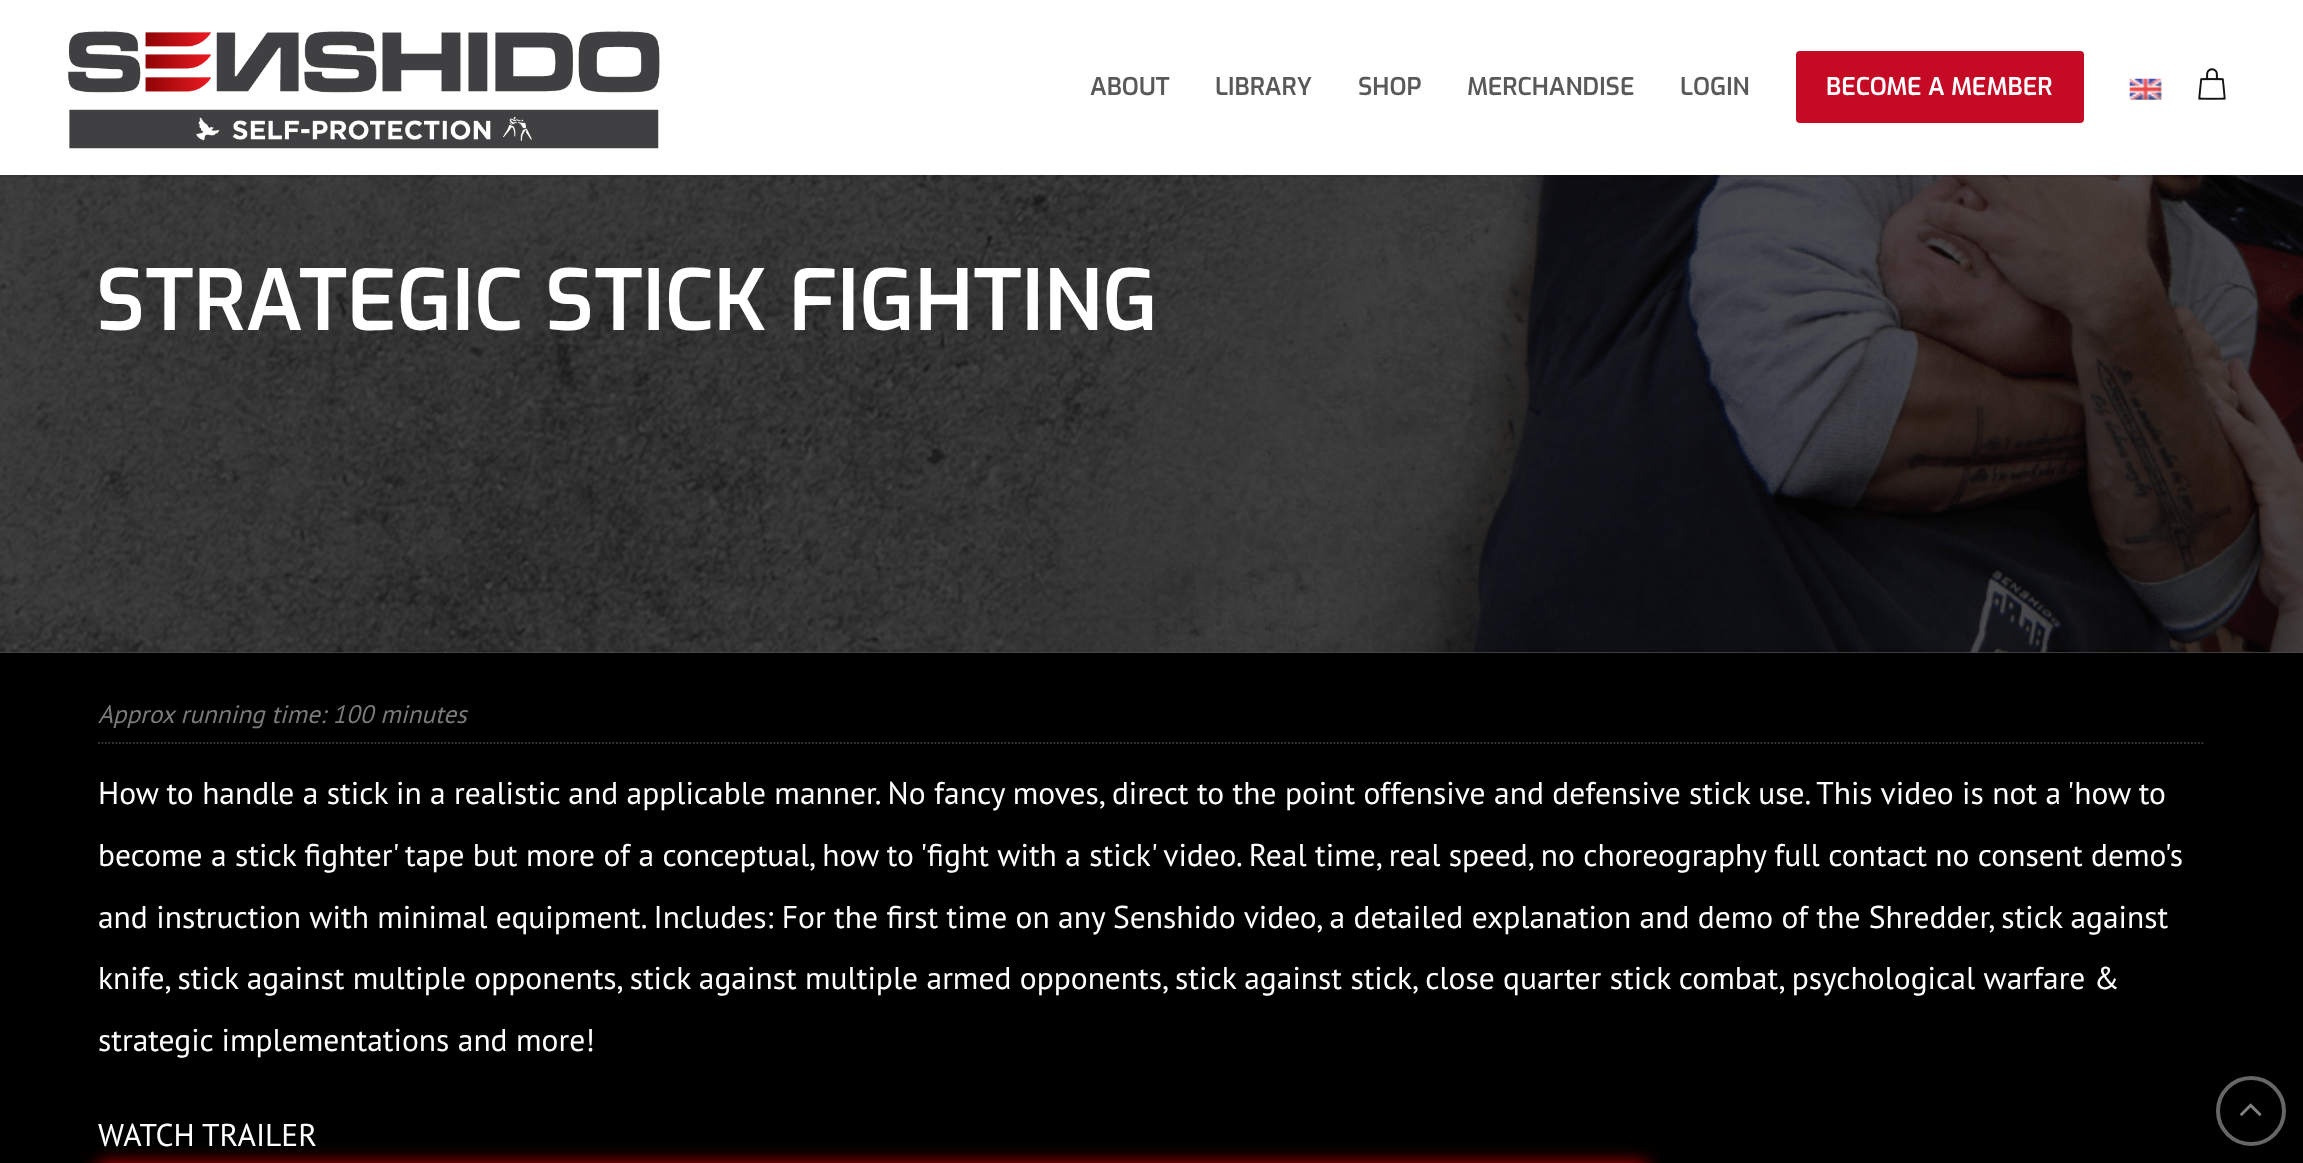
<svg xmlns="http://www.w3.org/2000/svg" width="2303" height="1163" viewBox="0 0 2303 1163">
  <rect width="100%" height="100%" fill="rgb(0,0,0)"/>
  <rect x="0" y="652" width="2303" height="1" fill="rgb(74,74,74)"/>
  <image x="0" y="175" width="2303" height="478" href="pic4.png"/>
  <rect x="0" y="175" width="2243" height="2" fill="rgba(0,0,0,0.08)"/>
  <rect x="0" y="0" width="2303" height="175" fill="rgb(255,255,255)"/>
  <image x="68" y="31" width="592" height="118" href="pic1.png"/>
  <g font-family="Exo" font-size="24.5" font-weight="600" fill="rgb(89,89,89)">
    <text x="1090" y="95">ABOUT</text>
    <text x="1215" y="95">LIBRARY</text>
    <text x="1358" y="95">SHOP</text>
    <text x="1467" y="95">MERCHANDISE</text>
    <text x="1680" y="95">LOGIN</text>
  </g>
  <rect x="1796" y="51" width="288" height="72" rx="4" fill="rgb(197,10,38)"/>
  <text x="1826" y="95" font-family="Exo" font-size="24.5" font-weight="600" fill="rgb(255,255,255)">BECOME A MEMBER</text>
  <image x="2129" y="78" width="33" height="22" href="pic2.png"/>
  <image x="2198" y="68" width="28" height="32" href="pic3.png"/>
  <text x="96" y="330" font-family="Exo" font-size="84" font-weight="600" fill="rgb(255,255,255)">STRATEGIC STICK FIGHTING</text>
  <path d="M98 743H2205" fill="none" stroke="rgb(54,54,54)" stroke-width="1.8" stroke-dasharray="1.75 1.75"/>
  <text x="98" y="723" font-family="PT Sans" font-size="25.25" font-style="italic" fill="rgb(122,122,122)">Approx running time: 100 minutes</text>
  <g font-family="PT Sans" font-size="31.5" fill="rgb(255,255,255)">
    <text>
      <tspan x="98" y="804">How to handle a stick in a realistic and applicable manner. No fancy moves, direct to the point offensive and defensive stick use. This video is not a 'how to</tspan>
      <tspan x="98" y="866">become a stick fighter' tape but more of a conceptual, how to 'fight with a stick' video. Real time, real speed, no choreography full contact no consent demo's</tspan>
      <tspan x="98" y="928">and instruction with minimal equipment. Includes: For the first time on any Senshido video, a detailed explanation and demo of the Shredder, stick against</tspan>
      <tspan x="98" y="989">knife, stick against multiple opponents, stick against multiple armed opponents, stick against stick, close quarter stick combat, psychological warfare &amp;</tspan>
      <tspan x="98" y="1051">strategic implementations and more!</tspan>
    </text>
    <text x="98" y="1146">WATCH TRAILER</text>
  </g>
  <rect x="98" y="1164" width="1549" height="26" fill="rgb(216,0,0)" filter="blur(9px)"/>
  <circle cx="2251" cy="1111" r="33" fill="none" stroke="rgb(102,102,102)" stroke-width="4"/>
  <image x="2240" y="1103" width="22" height="13" href="pic5.png"/>
</svg>
